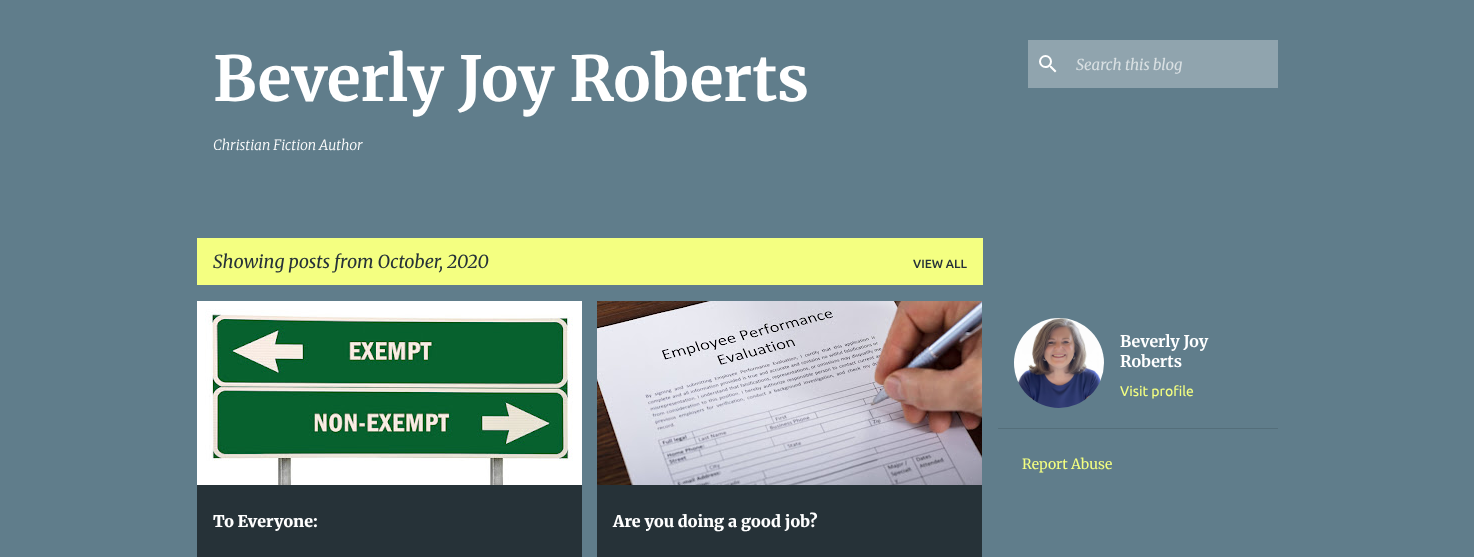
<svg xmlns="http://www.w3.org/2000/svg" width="1474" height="557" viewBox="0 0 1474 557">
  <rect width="100%" height="100%" fill="rgb(96,125,139)"/>
  <text x="213" y="101" font-family="Merriweather" font-size="62" font-weight="bold" fill="rgb(255,255,255)">Beverly Joy Roberts</text>
  <text x="213" y="150" font-family="Merriweather" font-size="14" font-weight="300" font-style="italic" fill="rgb(255,255,255)">Christian Fiction Author</text>
  <rect x="1028" y="40" width="250" height="48" fill="rgb(144,164,174)"/>
  <image x="1039" y="55" width="18" height="18" href="pic1.png"/>
  <text x="1076" y="70" font-family="Merriweather" font-size="15" font-style="italic" fill="rgb(217,224,227)">Search this blog</text>
  <rect x="197" y="238" width="786" height="47" fill="rgb(244,255,129)"/>
  <text x="213" y="268" font-family="Merriweather" font-size="18" font-style="italic" fill="rgb(38,50,56)">Showing posts from October, 2020</text>
  <text x="913" y="268" font-family="Ubuntu" font-size="12" font-weight="500" fill="rgb(38,50,56)">VIEW ALL</text>
  <image x="1014" y="318" width="90" height="90" href="pic2.png"/>
  <g font-family="Merriweather" font-size="16" font-weight="bold" fill="rgb(255,255,255)">
    <text>
      <tspan x="1120" y="347">Beverly Joy</tspan>
      <tspan x="1120" y="367">Roberts</tspan>
    </text>
  </g>
  <text x="1120" y="396" font-family="Ubuntu" font-size="14" fill="rgb(244,255,129)">Visit profile</text>
  <rect x="998" y="428" width="280" height="1" fill="rgb(84,110,122)"/>
  <text x="1022" y="469" font-family="Merriweather" font-size="14" fill="rgb(244,255,129)">Report Abuse</text>
  <rect x="197" y="485" width="385" height="72" fill="rgb(38,50,56)"/>
  <image x="197" y="301" width="385" height="184" href="pic3.png"/>
  <text x="213" y="527" font-family="Merriweather" font-size="16" font-weight="900" fill="rgb(255,255,255)">To Everyone:</text>
  <rect x="597" y="485" width="385" height="72" fill="rgb(38,50,56)"/>
  <image x="597" y="301" width="385" height="184" href="pic4.png"/>
  <text x="613" y="527" font-family="Merriweather" font-size="16" font-weight="900" fill="rgb(255,255,255)">Are you doing a good job?</text>
</svg>
